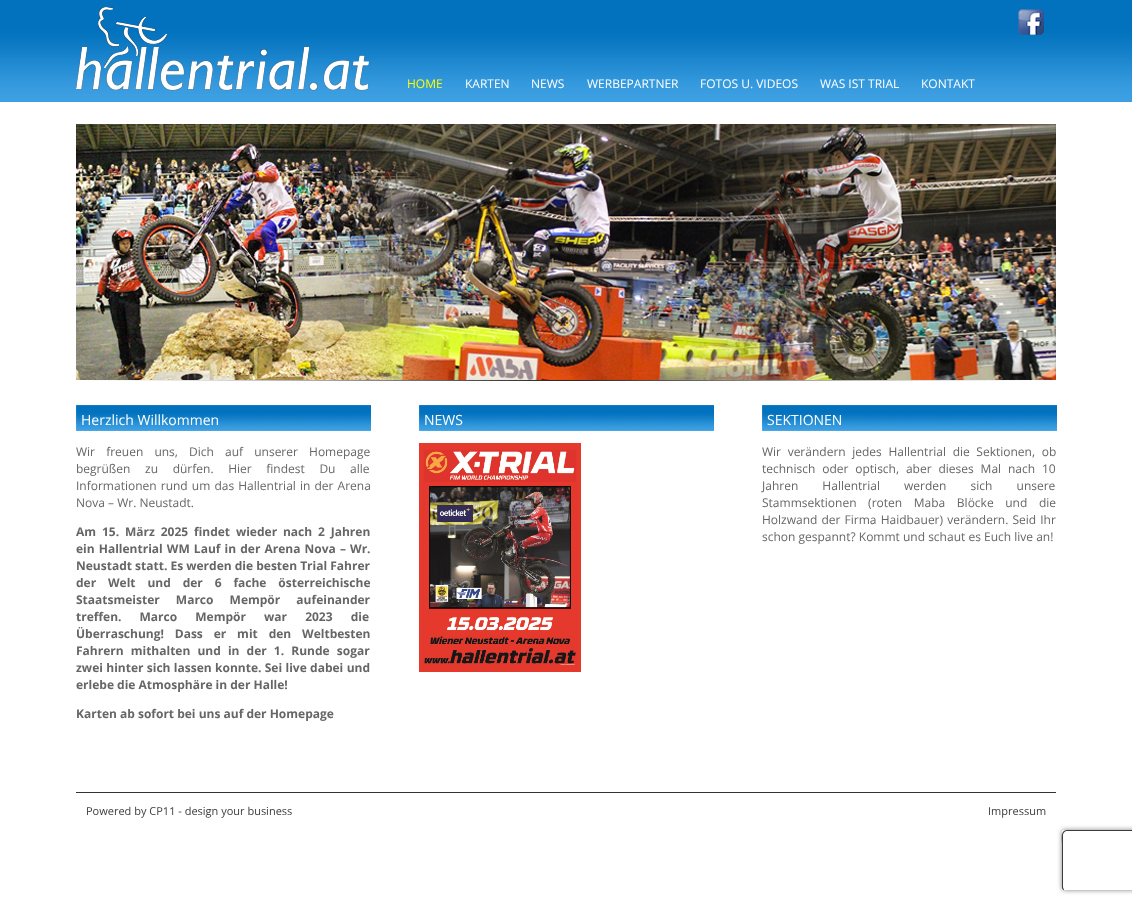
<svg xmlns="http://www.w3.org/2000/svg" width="1132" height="904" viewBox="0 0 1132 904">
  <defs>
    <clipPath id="clip1"><path d="M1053 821H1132V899H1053ZM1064 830H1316C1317 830 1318 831 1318 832V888C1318 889 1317 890 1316 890H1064C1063 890 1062 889 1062 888V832C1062 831 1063 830 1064 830Z" clip-rule="evenodd"/></clipPath>
  </defs>
  <rect width="100%" height="100%" fill="rgb(255,255,255)"/>
  <image x="0" y="0" width="1132" height="102" href="pic1.png"/>
  <image x="76" y="7" width="293" height="84" href="pic2.png"/>
  <image x="1018" y="9" width="26" height="26" href="pic3.png"/>
  <text x="407" y="88" font-family="Open Sans" font-size="12" fill="rgb(252,255,0)">HOME</text>
  <g font-family="Open Sans" font-size="12" fill="rgb(255,255,255)">
    <text x="465" y="88">KARTEN</text>
    <text x="531" y="88">NEWS</text>
    <text x="587" y="88">WERBEPARTNER</text>
    <text x="700" y="88">FOTOS U. VIDEOS</text>
    <text x="820" y="88">WAS IST TRIAL</text>
    <text x="921" y="88">KONTAKT</text>
  </g>
  <image x="76" y="124" width="980" height="257" href="pic4.png"/>
  <image x="76" y="405" width="295" height="26" href="pic5.png"/>
  <text x="81" y="425" font-family="Open Sans" font-size="14" fill="rgb(255,255,255)">Herzlich Willkommen</text>
  <g font-family="Open Sans" font-size="12" fill="rgb(102,102,102)">
    <text>
      <tspan x="76" y="456" word-spacing="8">Wir freuen uns, Dich auf unserer Homepage</tspan>
      <tspan x="76" y="473" word-spacing="11.5">begrüßen zu dürfen. Hier findest Du alle</tspan>
      <tspan x="76" y="490" word-spacing="1">Informationen rund um das Hallentrial in der Arena</tspan>
      <tspan x="76" y="507">Nova – Wr. Neustadt.</tspan>
    </text>
  </g>
  <g font-family="Open Sans" font-size="12" font-weight="bold" fill="rgb(102,102,102)">
    <text>
      <tspan x="76" y="536" word-spacing="2.75">Am 15. März 2025 findet wieder nach 2 Jahren</tspan>
      <tspan x="76" y="553" word-spacing="1">ein Hallentrial WM Lauf in der Arena Nova – Wr.</tspan>
      <tspan x="76" y="570">Neustadt statt. Es werden die besten Trial Fahrer</tspan>
      <tspan x="76" y="587" word-spacing="8.75">der Welt und der 6 fache österreichische</tspan>
      <tspan x="76" y="604" word-spacing="13">Staatsmeister Marco Mempör aufeinander</tspan>
      <tspan x="76" y="621" word-spacing="15">treffen. Marco Mempör war 2023 die</tspan>
      <tspan x="76" y="638" word-spacing="7.75">Überraschung! Dass er mit den Weltbesten</tspan>
      <tspan x="76" y="655" word-spacing="4">Fahrern mithalten und in der 1. Runde sogar</tspan>
      <tspan x="76" y="672" word-spacing="0.25">zwei hinter sich lassen konnte. Sei live dabei und</tspan>
      <tspan x="76" y="689">erlebe die Atmosphäre in der Halle!</tspan>
    </text>
    <text x="76" y="718">Karten ab sofort bei uns auf der Homepage</text>
  </g>
  <image x="419" y="405" width="295" height="26" href="pic5.png"/>
  <text x="424" y="425" font-family="Open Sans" font-size="14" fill="rgb(255,255,255)">NEWS</text>
  <image x="419" y="443" width="162" height="229" href="pic6.png"/>
  <image x="762" y="405" width="295" height="26" href="pic5.png"/>
  <text x="767" y="425" font-family="Open Sans" font-size="14" fill="rgb(255,255,255)">SEKTIONEN</text>
  <g font-family="Open Sans" font-size="12" fill="rgb(102,102,102)">
    <text>
      <tspan x="762" y="456" word-spacing="3.5">Wir verändern jedes Hallentrial die Sektionen, ob</tspan>
      <tspan x="762" y="473" word-spacing="3.75">technisch oder optisch, aber dieses Mal nach 10</tspan>
      <tspan x="762" y="490" word-spacing="21">Jahren Hallentrial werden sich unsere</tspan>
      <tspan x="762" y="507" word-spacing="8.5">Stammsektionen (roten Maba Blöcke und die</tspan>
      <tspan x="762" y="524" word-spacing="1">Holzwand der Firma Haidbauer) verändern. Seid Ihr</tspan>
      <tspan x="762" y="541">schon gespannt? Kommt und schaut es Euch live an!</tspan>
    </text>
  </g>
  <rect x="76" y="792" width="980" height="1" fill="rgb(51,51,51)"/>
  <g font-family="Open Sans" font-size="11" fill="rgb(60,60,62)">
    <text x="86" y="815">Powered by CP11 - design your business</text>
    <text x="988" y="815">Impressum</text>
  </g>
  <g clip-path="url(#clip1)">
    <rect x="1062" y="830" width="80" height="60" rx="2" fill="rgb(128,128,128)" filter="blur(2.5px)"/>
  </g>
  <path d="M1067 830C1060 830 1062 840 1062 844V888C1063 890 1063 890 1064 890C1064 889 1063 888 1063 887V835C1063 833 1065 831 1067 831H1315C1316 831 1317 832 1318 832C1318 831 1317 830 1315 830Z" fill="rgb(60,60,62)"/>
</svg>
